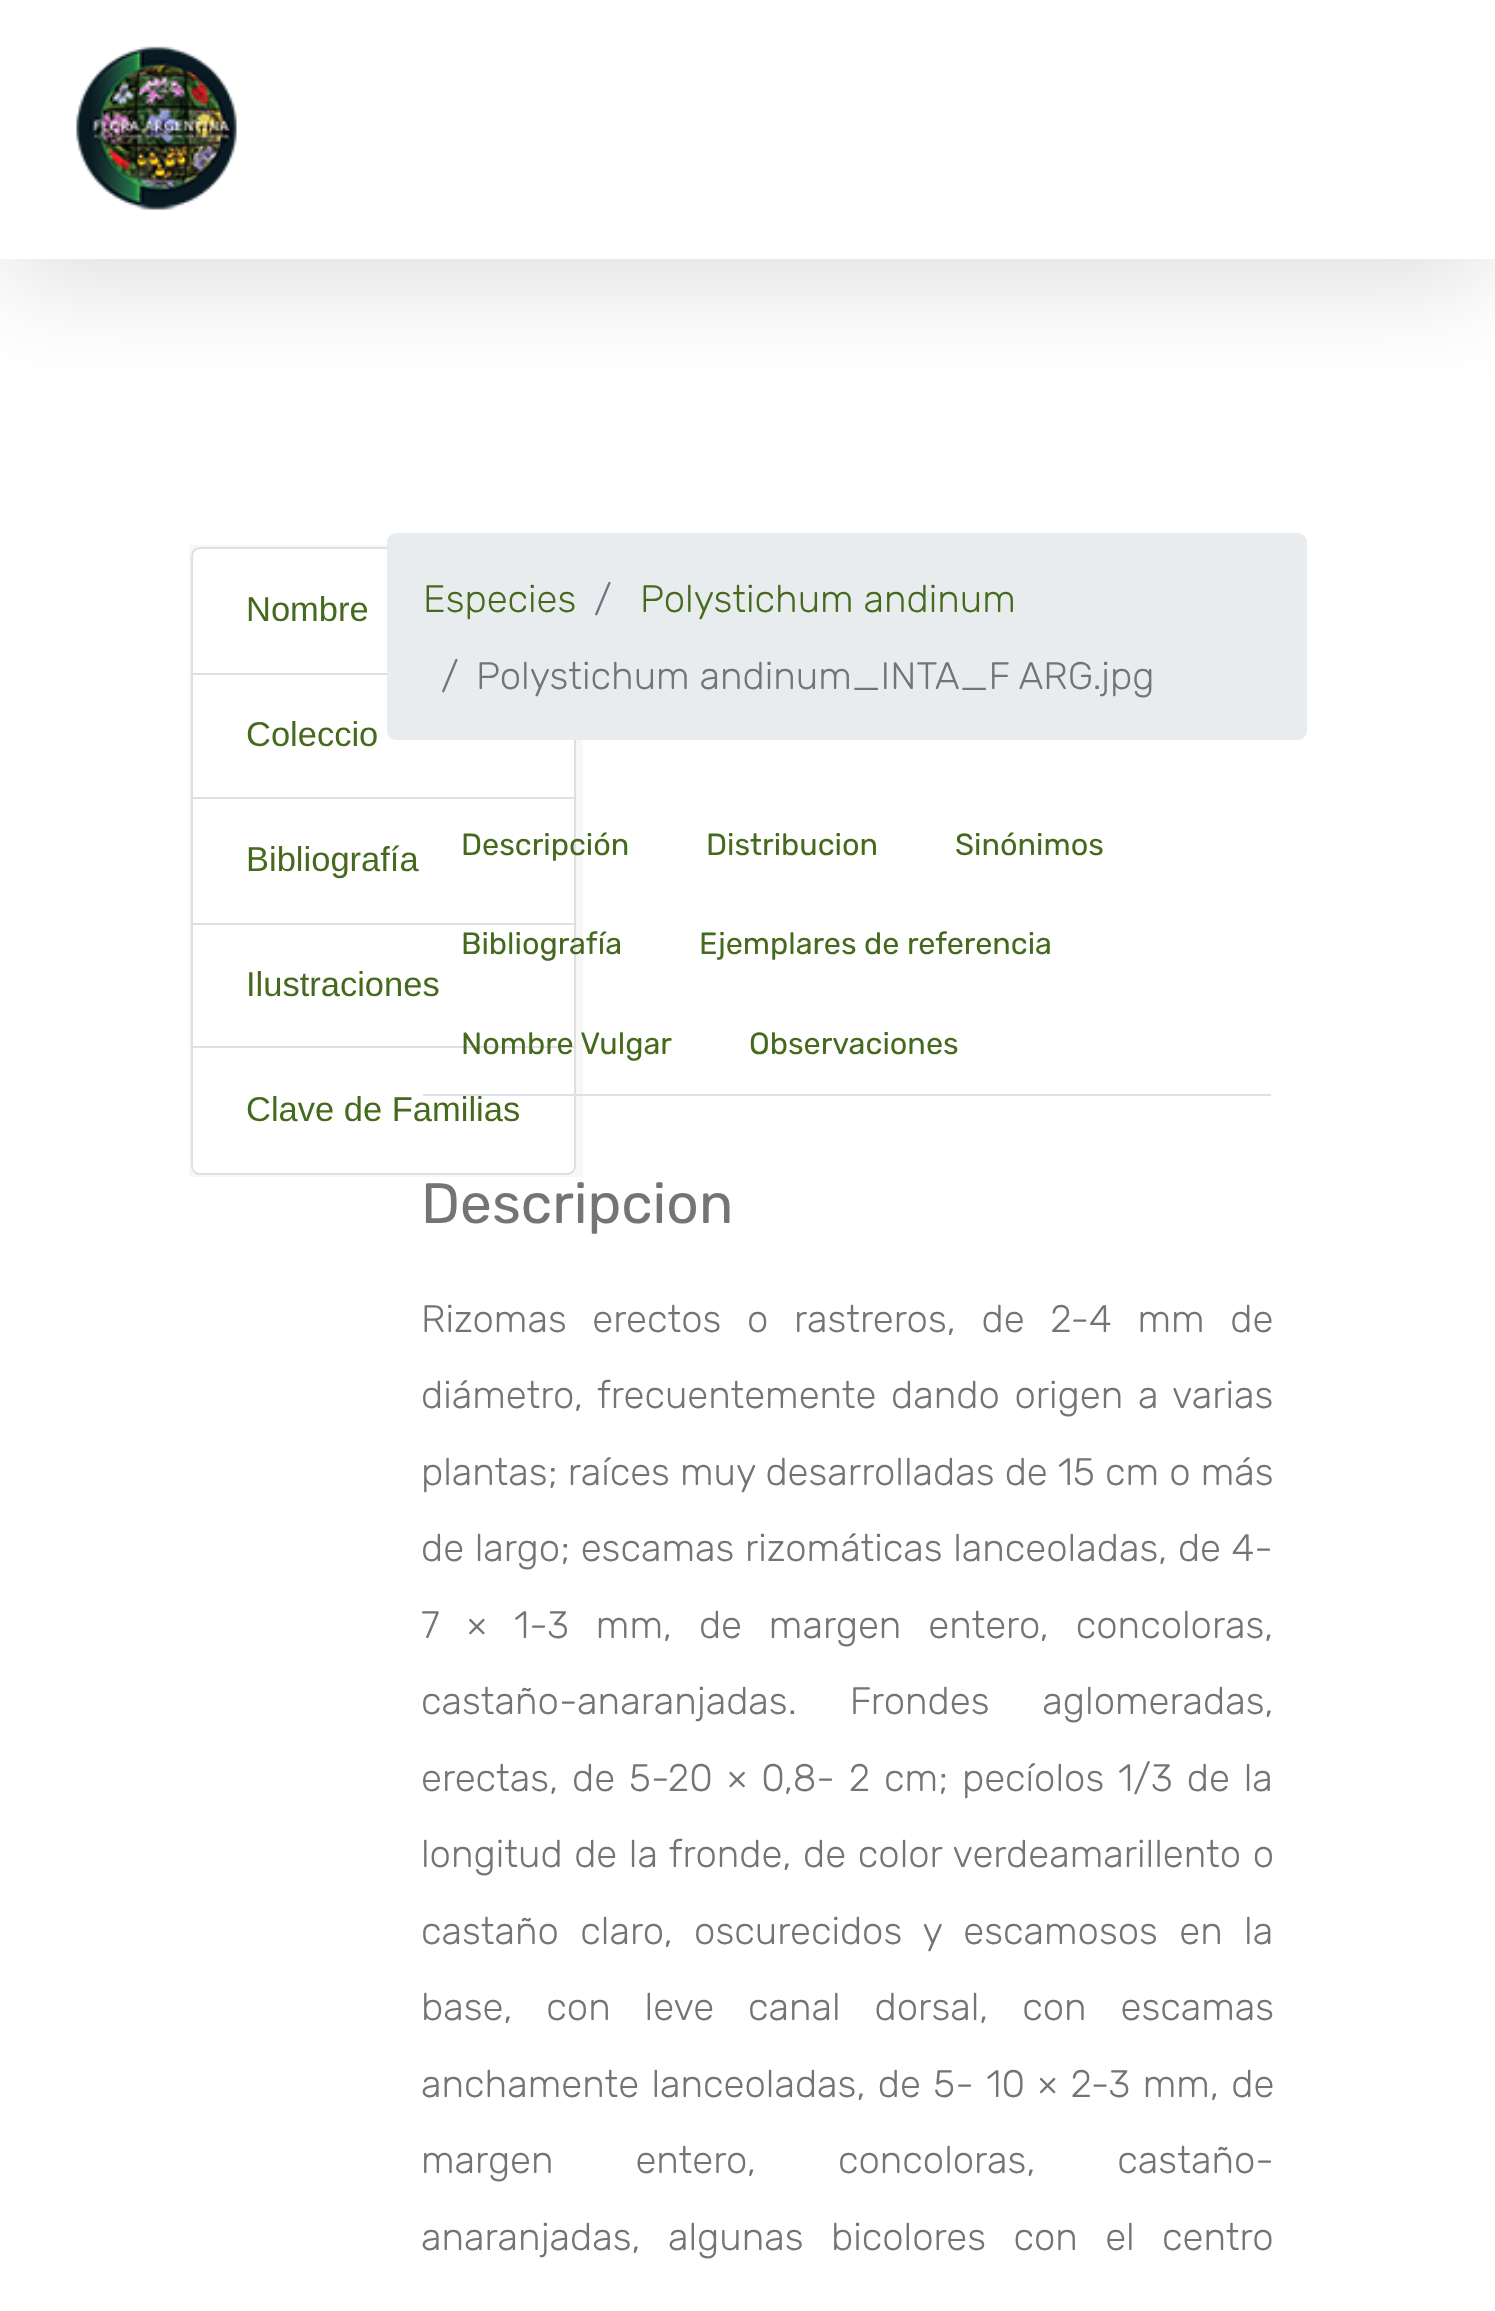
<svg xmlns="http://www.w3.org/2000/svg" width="1495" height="2311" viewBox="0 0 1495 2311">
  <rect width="100%" height="100%" fill="rgb(255,255,255)"/>
  <rect x="5" y="27" width="1487" height="250" fill="rgba(0,0,0,0.14)" filter="blur(56px)"/>
  <rect x="0" y="0" width="1495" height="259" fill="rgb(255,255,255)"/>
  <image x="76" y="46" width="161" height="164" href="pic1.png"/>
  <rect x="189" y="545" width="394" height="632" fill="rgb(247,247,247)"/>
  <path d="M200 547H567C572 547 576 551 576 556V675H191V556C191 551 195 547 200 547Z" fill="rgb(255,255,255)"/>
  <path d="M200 548H567C571.5 548 575 551.5 575 556V674H192V556C192 551.5 195.5 548 200 548Z" fill="none" stroke="rgba(0,0,0,0.12)" stroke-width="2"/>
  <text x="246" y="621" font-family="Liberation Sans" font-size="34.5" fill="rgb(70,106,29)">Nombre</text>
  <rect x="192" y="674" width="383" height="124" fill="rgb(255,255,255)" stroke="rgb(223,223,223)" stroke-width="2"/>
  <text x="246" y="746" font-family="Liberation Sans" font-size="34.5" fill="rgb(70,106,29)">Coleccio</text>
  <rect x="192" y="798" width="383" height="126" fill="rgb(255,255,255)" stroke="rgb(223,223,223)" stroke-width="2"/>
  <text x="246" y="871" font-family="Liberation Sans" font-size="34.5" fill="rgb(70,106,29)">Bibliografía</text>
  <rect x="193" y="925" width="381" height="121" fill="rgb(255,255,255)"/>
  <rect x="192" y="924" width="383" height="124" fill="none" stroke="rgb(223,223,223)" stroke-width="2"/>
  <text x="246" y="996" font-family="Liberation Sans" font-size="34.5" fill="rgb(70,106,29)">Ilustraciones</text>
  <path d="M191 1046H576V1166C576 1171 572 1175 567 1175H200C195 1175 191 1171 191 1166Z" fill="rgb(255,255,255)"/>
  <path d="M192 1047H575V1166C575 1170.5 571.5 1174 567 1174H200C195.5 1174 192 1170.5 192 1166Z" fill="none" stroke="rgba(0,0,0,0.12)" stroke-width="2"/>
  <text x="246" y="1121" font-family="Liberation Sans" font-size="34.5" fill="rgb(70,106,29)">Clave de Familias</text>
  <rect x="387" y="533" width="920" height="207" rx="9" fill="rgb(233,236,239)"/>
  <text x="423" y="612" font-family="Rubik" font-size="38.25" font-weight="300" fill="rgb(70,106,29)">Especies</text>
  <text x="594" y="612" font-family="Rubik" font-size="38.25" font-weight="300" fill="rgb(108,117,125)">/</text>
  <text x="640" y="612" font-family="Rubik" font-size="38.25" font-weight="300" fill="rgb(70,106,29)">Polystichum andinum</text>
  <text x="441" y="689" font-family="Rubik" font-size="38.25" font-weight="300" fill="rgb(108,117,125)">/</text>
  <text x="476" y="689" font-family="Rubik" font-size="38.25" font-weight="300" fill="rgb(116,116,116)">Polystichum andinum_INTA_F ARG.jpg</text>
  <rect x="423" y="1094" width="848" height="2" fill="rgb(222,226,230)"/>
  <g font-family="Rubik" font-size="30.6" fill="rgb(70,106,29)">
    <text x="461" y="855">Descripción</text>
    <text x="706" y="855">Distribucion</text>
    <text x="955" y="855">Sinónimos</text>
    <text x="461" y="954">Bibliografía</text>
    <text x="699" y="954">Ejemplares de referencia</text>
    <text x="461" y="1054">Nombre Vulgar</text>
    <text x="749" y="1054">Observaciones</text>
  </g>
  <text x="421" y="1223" font-family="Rubik" font-size="56.75" fill="rgb(116,116,116)">Descripcion</text>
  <g font-family="Rubik" font-size="38.25" font-weight="300" fill="rgb(116,116,116)">
    <text>
      <tspan x="421" y="1332" word-spacing="15.75">Rizomas erectos o rastreros, de 2-4 mm de</tspan>
      <tspan x="421" y="1408" word-spacing="4.75">diámetro, frecuentemente dando origen a varias</tspan>
    </text>
    <text>
      <tspan x="421" y="1485" word-spacing="0.25">plantas; raíces muy desarrolladas de 15 cm o más</tspan>
      <tspan x="421" y="1561" word-spacing="0.75">de largo; escamas rizomáticas lanceoladas, de 4-</tspan>
    </text>
    <text>
      <tspan x="421" y="1638" word-spacing="17">7 × 1-3 mm, de margen entero, concoloras,</tspan>
      <tspan x="421" y="1714" word-spacing="43">castaño-anaranjadas. Frondes aglomeradas,</tspan>
    </text>
    <text>
      <tspan x="421" y="1791" word-spacing="4">erectas, de 5-20 × 0,8- 2 cm; pecíolos 1/3 de la</tspan>
      <tspan x="421" y="1867" word-spacing="1.75">longitud de la fronde, de color verdeamarillento o</tspan>
    </text>
    <text>
      <tspan x="421" y="1944" word-spacing="11.5">castaño claro, oscurecidos y escamosos en la</tspan>
      <tspan x="421" y="2020" word-spacing="24">base, con leve canal dorsal, con escamas</tspan>
    </text>
    <text>
      <tspan x="421" y="2097" word-spacing="2.5">anchamente lanceoladas, de 5- 10 × 2-3 mm, de</tspan>
      <tspan x="421" y="2173" word-spacing="72">margen entero, concoloras, castaño-</tspan>
    </text>
    <text x="421" y="2250" word-spacing="17.5">anaranjadas, algunas bicolores con el centro</text>
  </g>
</svg>
